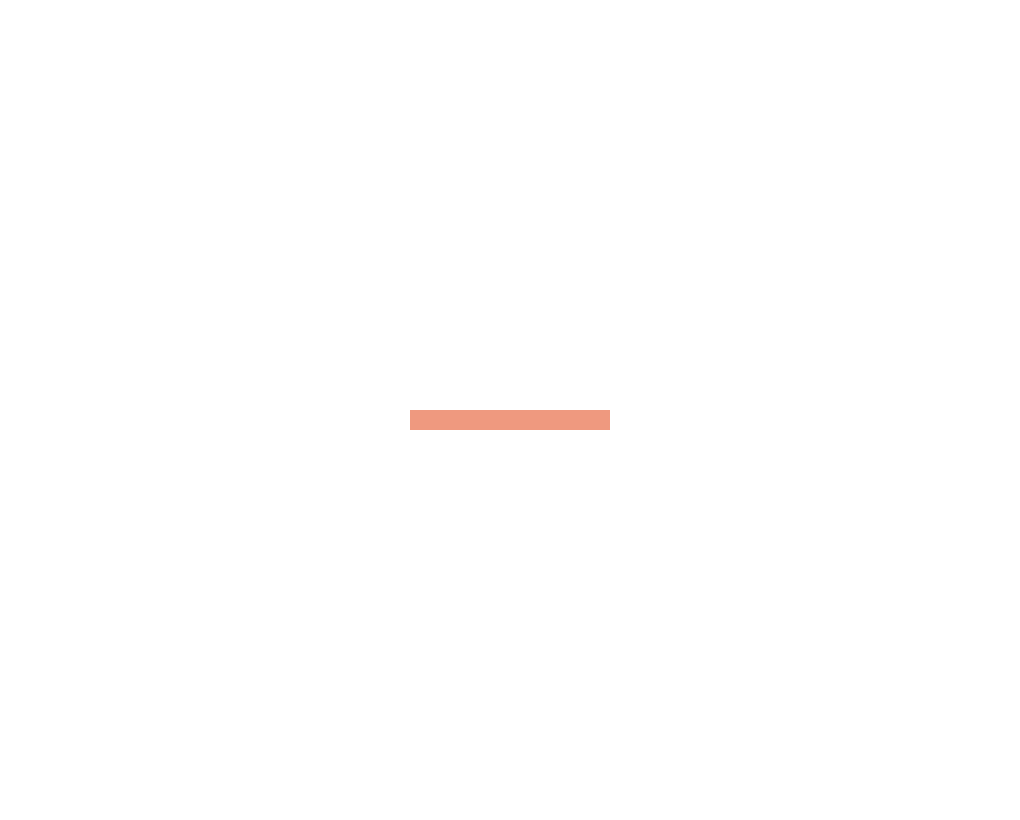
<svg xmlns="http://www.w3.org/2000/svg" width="1020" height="820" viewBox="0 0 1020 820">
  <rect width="100%" height="100%" fill="rgb(255,255,255)"/>
  <rect x="410" y="410" width="200" height="20" fill="rgb(239,153,127)"/>
</svg>
